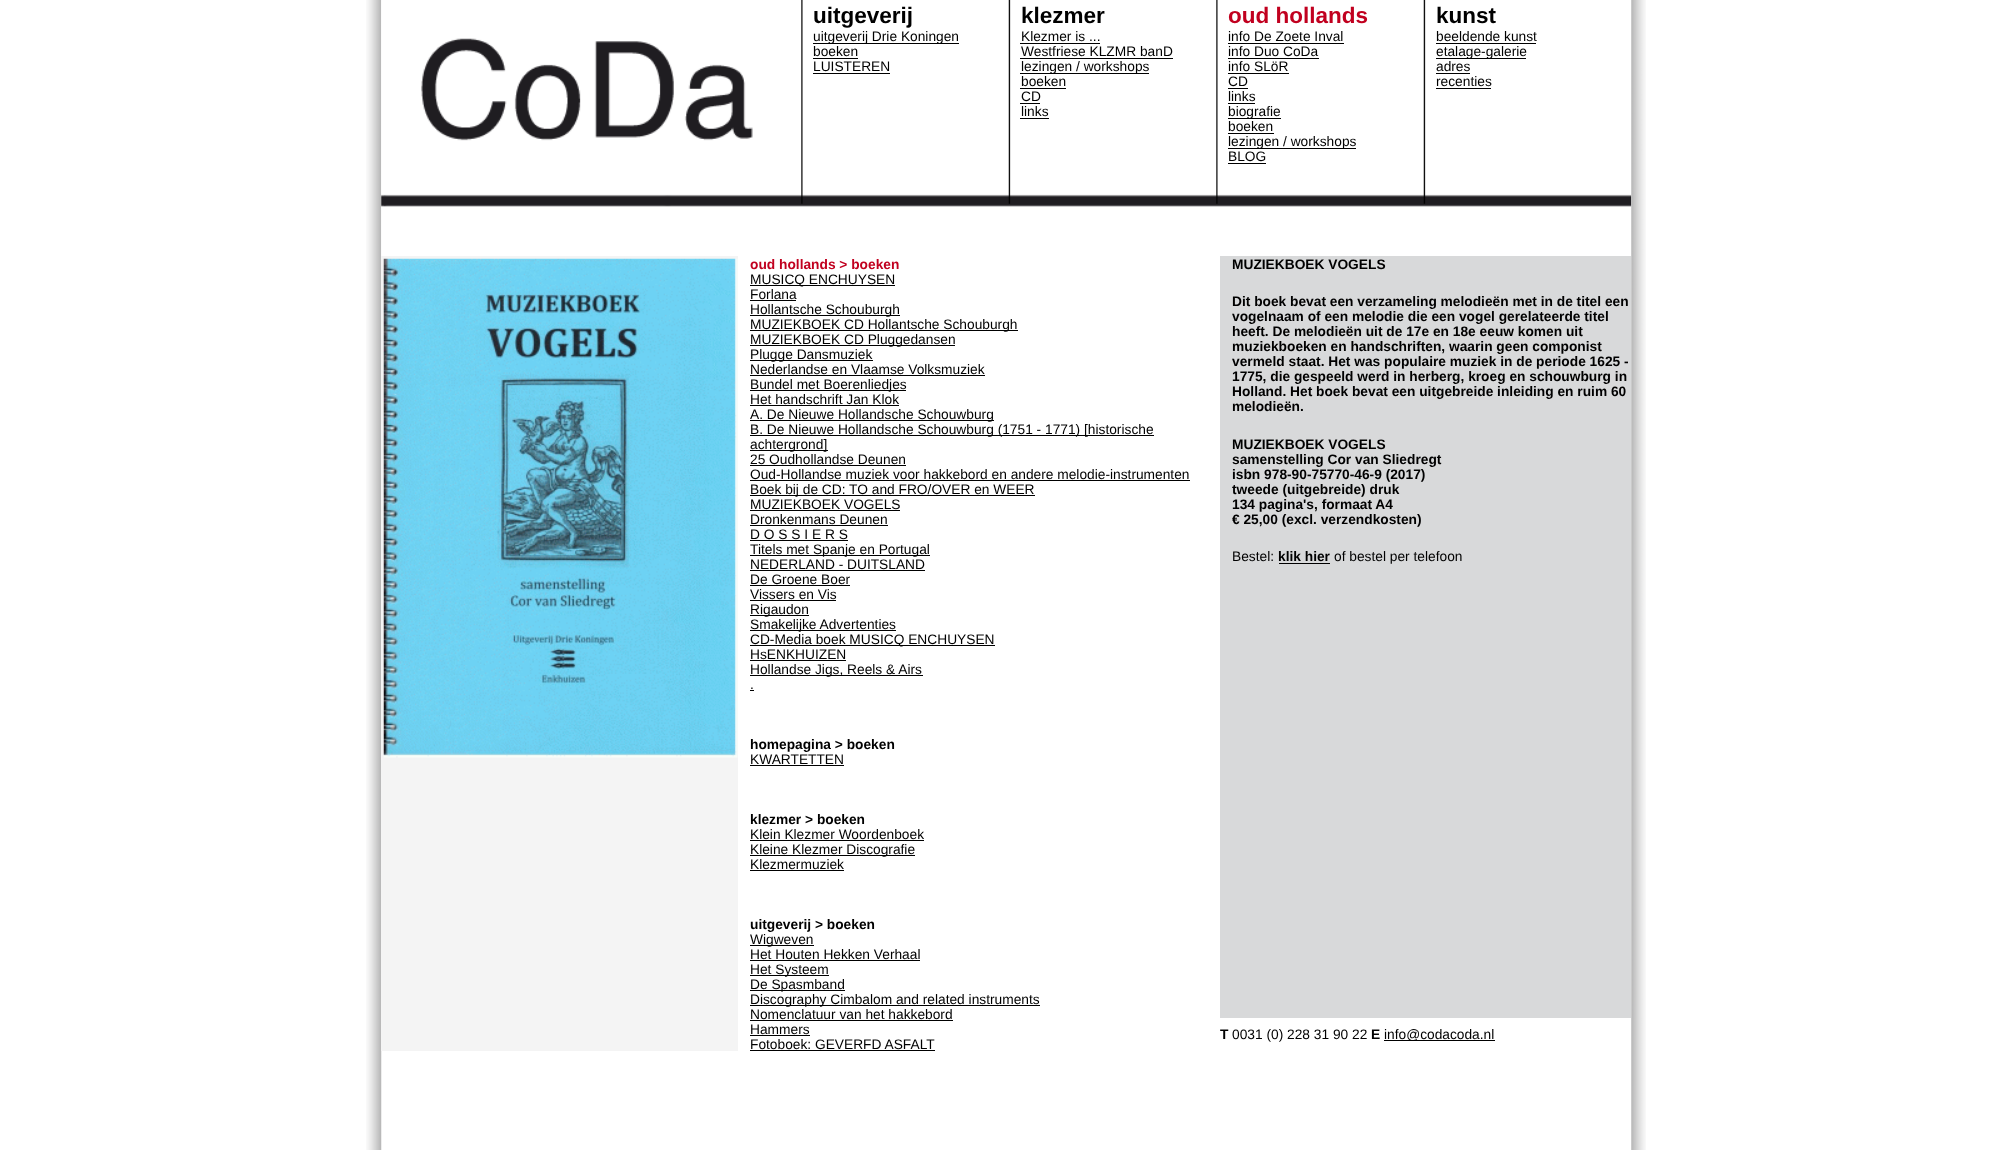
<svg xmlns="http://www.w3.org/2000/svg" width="2012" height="1150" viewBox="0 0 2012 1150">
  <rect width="100%" height="100%" fill="rgb(255,255,255)"/>
  <image x="366" y="0" width="16" height="1150" href="pic1.png"/>
  <image x="381" y="0" width="1251" height="256" href="pic2.png"/>
  <text x="813" y="23" font-family="Liberation Sans" font-size="22.5" font-weight="bold" fill="rgb(0,0,0)">uitgeverij</text>
  <rect x="813" y="43" width="146" height="1" fill="rgb(0,0,0)"/>
  <g font-family="Liberation Sans" font-size="13.75" fill="rgb(0,0,0)">
    <text>
      <tspan x="813" y="41">uitgeverij Drie Koningen</tspan>
      <tspan x="813" y="56">boeken</tspan>
    </text>
  </g>
  <rect x="813" y="58" width="45" height="1" fill="rgb(0,0,0)"/>
  <text x="813" y="71" font-family="Liberation Sans" font-size="13.75" fill="rgb(0,0,0)">LUISTEREN</text>
  <rect x="813" y="73" width="77" height="1" fill="rgb(0,0,0)"/>
  <text x="1021" y="23" font-family="Liberation Sans" font-size="22.5" font-weight="bold" fill="rgb(0,0,0)">klezmer</text>
  <text x="1021" y="41" font-family="Liberation Sans" font-size="13.75" fill="rgb(0,0,0)">Klezmer is ...</text>
  <rect x="1020" y="43" width="80" height="1" fill="rgb(0,0,0)"/>
  <text x="1021" y="56" font-family="Liberation Sans" font-size="13.75" fill="rgb(0,0,0)">Westfriese KLZMR banD</text>
  <rect x="1020" y="58" width="153" height="1" fill="rgb(0,0,0)"/>
  <rect x="1020" y="73" width="129" height="1" fill="rgb(0,0,0)"/>
  <g font-family="Liberation Sans" font-size="13.75" fill="rgb(0,0,0)">
    <text>
      <tspan x="1021" y="71">lezingen / workshops</tspan>
      <tspan x="1021" y="86">boeken</tspan>
    </text>
  </g>
  <rect x="1020" y="88" width="46" height="1" fill="rgb(0,0,0)"/>
  <text x="1021" y="101" font-family="Liberation Sans" font-size="13.75" fill="rgb(0,0,0)">CD</text>
  <rect x="1020" y="103" width="20" height="1" fill="rgb(0,0,0)"/>
  <text x="1021" y="116" font-family="Liberation Sans" font-size="13.75" fill="rgb(0,0,0)">links</text>
  <rect x="1020" y="118" width="29" height="1" fill="rgb(0,0,0)"/>
  <text x="1228" y="23" font-family="Liberation Sans" font-size="22.5" font-weight="bold" fill="rgb(193,0,31)">oud hollands</text>
  <text x="1228" y="41" font-family="Liberation Sans" font-size="13.75" fill="rgb(0,0,0)">info De Zoete Inval</text>
  <rect x="1228" y="43" width="116" height="1" fill="rgb(0,0,0)"/>
  <text x="1228" y="56" font-family="Liberation Sans" font-size="13.75" fill="rgb(0,0,0)">info Duo CoDa</text>
  <rect x="1228" y="58" width="91" height="1" fill="rgb(0,0,0)"/>
  <text x="1228" y="71" font-family="Liberation Sans" font-size="13.75" fill="rgb(0,0,0)">info SLöR</text>
  <rect x="1228" y="73" width="61" height="1" fill="rgb(0,0,0)"/>
  <text x="1228" y="86" font-family="Liberation Sans" font-size="13.75" fill="rgb(0,0,0)">CD</text>
  <rect x="1228" y="88" width="20" height="1" fill="rgb(0,0,0)"/>
  <text x="1228" y="101" font-family="Liberation Sans" font-size="13.75" fill="rgb(0,0,0)">links</text>
  <rect x="1228" y="103" width="27" height="1" fill="rgb(0,0,0)"/>
  <rect x="1228" y="118" width="53" height="1" fill="rgb(0,0,0)"/>
  <g font-family="Liberation Sans" font-size="13.75" fill="rgb(0,0,0)">
    <text>
      <tspan x="1228" y="116">biografie</tspan>
      <tspan x="1228" y="131">boeken</tspan>
    </text>
  </g>
  <rect x="1228" y="133" width="46" height="1" fill="rgb(0,0,0)"/>
  <rect x="1228" y="148" width="128" height="1" fill="rgb(0,0,0)"/>
  <g font-family="Liberation Sans" font-size="13.75" fill="rgb(0,0,0)">
    <text>
      <tspan x="1228" y="146">lezingen / workshops</tspan>
      <tspan x="1228" y="161">BLOG</tspan>
    </text>
  </g>
  <rect x="1228" y="163" width="38" height="1" fill="rgb(0,0,0)"/>
  <text x="1436" y="23" font-family="Liberation Sans" font-size="22.5" font-weight="bold" fill="rgb(0,0,0)">kunst</text>
  <text x="1436" y="41" font-family="Liberation Sans" font-size="13.75" fill="rgb(0,0,0)">beeldende kunst</text>
  <rect x="1436" y="43" width="100" height="1" fill="rgb(0,0,0)"/>
  <rect x="1436" y="58" width="90" height="1" fill="rgb(0,0,0)"/>
  <g font-family="Liberation Sans" font-size="13.75" fill="rgb(0,0,0)">
    <text>
      <tspan x="1436" y="56">etalage-galerie</tspan>
      <tspan x="1436" y="71">adres</tspan>
    </text>
  </g>
  <rect x="1436" y="73" width="34" height="1" fill="rgb(0,0,0)"/>
  <text x="1436" y="86" font-family="Liberation Sans" font-size="13.75" fill="rgb(0,0,0)">recenties</text>
  <rect x="1436" y="88" width="55" height="1" fill="rgb(0,0,0)"/>
  <rect x="381" y="256" width="357" height="795" fill="rgb(244,244,244)"/>
  <image x="383" y="258" width="355" height="500" href="pic3.png"/>
  <text x="750" y="269" font-family="Liberation Sans" font-size="13.75" font-weight="bold" fill="rgb(193,0,31)">oud hollands &gt; boeken</text>
  <rect x="750" y="285" width="145" height="1" fill="rgb(0,0,0)"/>
  <g font-family="Liberation Sans" font-size="13.75" fill="rgb(0,0,0)">
    <text>
      <tspan x="750" y="284">MUSICQ ENCHUYSEN</tspan>
      <tspan x="750" y="299">Forlana</tspan>
    </text>
  </g>
  <rect x="750" y="300" width="46" height="1" fill="rgb(0,0,0)"/>
  <rect x="750" y="315" width="150" height="1" fill="rgb(0,0,0)"/>
  <text x="750" y="314" font-family="Liberation Sans" font-size="13.75" fill="rgb(0,0,0)">Hollantsche Schouburgh</text>
  <rect x="750" y="330" width="268" height="1" fill="rgb(0,0,0)"/>
  <text x="750" y="329" font-family="Liberation Sans" font-size="13.75" fill="rgb(0,0,0)">MUZIEKBOEK CD Hollantsche Schouburgh</text>
  <rect x="750" y="345" width="205" height="1" fill="rgb(0,0,0)"/>
  <text x="750" y="344" font-family="Liberation Sans" font-size="13.75" fill="rgb(0,0,0)">MUZIEKBOEK CD Pluggedansen</text>
  <rect x="750" y="360" width="123" height="1" fill="rgb(0,0,0)"/>
  <g font-family="Liberation Sans" font-size="13.75" fill="rgb(0,0,0)">
    <text>
      <tspan x="750" y="359">Plugge Dansmuziek</tspan>
      <tspan x="750" y="374">Nederlandse en Vlaamse Volksmuziek</tspan>
    </text>
  </g>
  <rect x="750" y="375" width="235" height="1" fill="rgb(0,0,0)"/>
  <rect x="750" y="390" width="156" height="1" fill="rgb(0,0,0)"/>
  <g font-family="Liberation Sans" font-size="13.75" fill="rgb(0,0,0)">
    <text>
      <tspan x="750" y="389">Bundel met Boerenliedjes</tspan>
      <tspan x="750" y="404">Het handschrift Jan Klok</tspan>
    </text>
  </g>
  <rect x="750" y="405" width="149" height="1" fill="rgb(0,0,0)"/>
  <rect x="750" y="420" width="244" height="1" fill="rgb(0,0,0)"/>
  <text x="750" y="419" font-family="Liberation Sans" font-size="13.75" fill="rgb(0,0,0)">A. De Nieuwe Hollandsche Schouwburg</text>
  <rect x="750" y="435" width="404" height="1" fill="rgb(0,0,0)"/>
  <text x="750" y="434" font-family="Liberation Sans" font-size="13.75" fill="rgb(0,0,0)">B. De Nieuwe Hollandsche Schouwburg (1751 - 1771) [historische</text>
  <rect x="750" y="450" width="78" height="1" fill="rgb(0,0,0)"/>
  <g font-family="Liberation Sans" font-size="13.75" fill="rgb(0,0,0)">
    <text>
      <tspan x="750" y="449">achtergrond]</tspan>
      <tspan x="750" y="464">25 Oudhollandse Deunen</tspan>
    </text>
  </g>
  <rect x="750" y="465" width="156" height="1" fill="rgb(0,0,0)"/>
  <text x="750" y="479" font-family="Liberation Sans" font-size="13.75" fill="rgb(0,0,0)">Oud-Hollandse muziek voor hakkebord en andere melodie-instrumenten</text>
  <rect x="750" y="480" width="440" height="1" fill="rgb(0,0,0)"/>
  <rect x="750" y="495" width="285" height="1" fill="rgb(0,0,0)"/>
  <g font-family="Liberation Sans" font-size="13.75" fill="rgb(0,0,0)">
    <text>
      <tspan x="750" y="494">Boek bij de CD: TO and FRO/OVER en WEER</tspan>
      <tspan x="750" y="509">MUZIEKBOEK VOGELS</tspan>
    </text>
  </g>
  <rect x="750" y="510" width="150" height="1" fill="rgb(0,0,0)"/>
  <text x="750" y="524" font-family="Liberation Sans" font-size="13.75" fill="rgb(0,0,0)">Dronkenmans Deunen</text>
  <rect x="750" y="525" width="138" height="1" fill="rgb(0,0,0)"/>
  <text x="750" y="539" font-family="Liberation Sans" font-size="13.75" fill="rgb(0,0,0)">D O S S I E R S</text>
  <rect x="750" y="540" width="98" height="1" fill="rgb(0,0,0)"/>
  <rect x="750" y="555" width="180" height="1" fill="rgb(0,0,0)"/>
  <g font-family="Liberation Sans" font-size="13.75" fill="rgb(0,0,0)">
    <text>
      <tspan x="750" y="554">Titels met Spanje en Portugal</tspan>
      <tspan x="750" y="569">NEDERLAND - DUITSLAND</tspan>
    </text>
  </g>
  <rect x="750" y="570" width="175" height="1" fill="rgb(0,0,0)"/>
  <text x="750" y="584" font-family="Liberation Sans" font-size="13.75" fill="rgb(0,0,0)">De Groene Boer</text>
  <rect x="750" y="585" width="100" height="1" fill="rgb(0,0,0)"/>
  <text x="750" y="599" font-family="Liberation Sans" font-size="13.75" fill="rgb(0,0,0)">Vissers en Vis</text>
  <rect x="750" y="600" width="86" height="1" fill="rgb(0,0,0)"/>
  <rect x="750" y="615" width="59" height="1" fill="rgb(0,0,0)"/>
  <text x="750" y="614" font-family="Liberation Sans" font-size="13.75" fill="rgb(0,0,0)">Rigaudon</text>
  <rect x="750" y="630" width="146" height="1" fill="rgb(0,0,0)"/>
  <text x="750" y="629" font-family="Liberation Sans" font-size="13.75" fill="rgb(0,0,0)">Smakelijke Advertenties</text>
  <rect x="750" y="645" width="245" height="1" fill="rgb(0,0,0)"/>
  <g font-family="Liberation Sans" font-size="13.75" fill="rgb(0,0,0)">
    <text>
      <tspan x="750" y="644">CD-Media boek MUSICQ ENCHUYSEN</tspan>
      <tspan x="750" y="659">HsENKHUIZEN</tspan>
    </text>
  </g>
  <rect x="750" y="660" width="96" height="1" fill="rgb(0,0,0)"/>
  <rect x="750" y="675" width="173" height="1" fill="rgb(0,0,0)"/>
  <g font-family="Liberation Sans" font-size="13.75" fill="rgb(0,0,0)">
    <text>
      <tspan x="750" y="674">Hollandse Jigs, Reels &amp; Airs</tspan>
      <tspan x="750" y="689">.</tspan>
    </text>
  </g>
  <rect x="750" y="690" width="4" height="1" fill="rgb(0,0,0)"/>
  <text x="750" y="749" font-family="Liberation Sans" font-size="13.75" font-weight="bold" fill="rgb(0,0,0)">homepagina &gt; boeken</text>
  <text x="750" y="764" font-family="Liberation Sans" font-size="13.75" fill="rgb(0,0,0)">KWARTETTEN</text>
  <rect x="750" y="765" width="94" height="1" fill="rgb(0,0,0)"/>
  <text x="750" y="824" font-family="Liberation Sans" font-size="13.75" font-weight="bold" fill="rgb(0,0,0)">klezmer &gt; boeken</text>
  <text x="750" y="839" font-family="Liberation Sans" font-size="13.75" fill="rgb(0,0,0)">Klein Klezmer Woordenboek</text>
  <rect x="750" y="840" width="174" height="1" fill="rgb(0,0,0)"/>
  <rect x="750" y="855" width="165" height="1" fill="rgb(0,0,0)"/>
  <g font-family="Liberation Sans" font-size="13.75" fill="rgb(0,0,0)">
    <text>
      <tspan x="750" y="854">Kleine Klezmer Discografie</tspan>
      <tspan x="750" y="869">Klezmermuziek</tspan>
    </text>
  </g>
  <rect x="750" y="870" width="94" height="1" fill="rgb(0,0,0)"/>
  <text x="750" y="929" font-family="Liberation Sans" font-size="13.75" font-weight="bold" fill="rgb(0,0,0)">uitgeverij &gt; boeken</text>
  <rect x="750" y="945" width="64" height="1" fill="rgb(0,0,0)"/>
  <g font-family="Liberation Sans" font-size="13.75" fill="rgb(0,0,0)">
    <text>
      <tspan x="750" y="944">Wigweven</tspan>
      <tspan x="750" y="959">Het Houten Hekken Verhaal</tspan>
    </text>
  </g>
  <rect x="750" y="960" width="170" height="1" fill="rgb(0,0,0)"/>
  <rect x="750" y="975" width="79" height="1" fill="rgb(0,0,0)"/>
  <text x="750" y="974" font-family="Liberation Sans" font-size="13.75" fill="rgb(0,0,0)">Het Systeem</text>
  <rect x="750" y="990" width="95" height="1" fill="rgb(0,0,0)"/>
  <text x="750" y="989" font-family="Liberation Sans" font-size="13.75" fill="rgb(0,0,0)">De Spasmband</text>
  <rect x="750" y="1005" width="290" height="1" fill="rgb(0,0,0)"/>
  <g font-family="Liberation Sans" font-size="13.75" fill="rgb(0,0,0)">
    <text>
      <tspan x="750" y="1004">Discography Cimbalom and related instruments</tspan>
      <tspan x="750" y="1019">Nomenclatuur van het hakkebord</tspan>
    </text>
  </g>
  <rect x="750" y="1020" width="203" height="1" fill="rgb(0,0,0)"/>
  <text x="750" y="1034" font-family="Liberation Sans" font-size="13.75" fill="rgb(0,0,0)">Hammers</text>
  <rect x="750" y="1035" width="60" height="1" fill="rgb(0,0,0)"/>
  <text x="750" y="1049" font-family="Liberation Sans" font-size="13.75" fill="rgb(0,0,0)">Fotoboek: GEVERFD ASFALT</text>
  <rect x="750" y="1050" width="185" height="1" fill="rgb(0,0,0)"/>
  <rect x="1220" y="256" width="411" height="762" fill="rgb(216,217,218)"/>
  <g font-family="Liberation Sans" font-size="13.75" font-weight="bold" fill="rgb(0,0,0)">
    <text x="1232" y="269">MUZIEKBOEK VOGELS</text>
    <text>
      <tspan x="1232" y="306">Dit boek bevat een verzameling melodieën met in de titel een</tspan>
      <tspan x="1232" y="321">vogelnaam of een melodie die een vogel gerelateerde titel</tspan>
      <tspan x="1232" y="336">heeft. De melodieën uit de 17e en 18e eeuw komen uit</tspan>
      <tspan x="1232" y="351">muziekboeken en handschriften, waarin geen componist</tspan>
      <tspan x="1232" y="366">vermeld staat. Het was populaire muziek in de periode 1625 -</tspan>
      <tspan x="1232" y="381">1775, die gespeeld werd in herberg, kroeg en schouwburg in</tspan>
      <tspan x="1232" y="396">Holland. Het boek bevat een uitgebreide inleiding en ruim 60</tspan>
      <tspan x="1232" y="411">melodieën.</tspan>
    </text>
    <text>
      <tspan x="1232" y="449">MUZIEKBOEK VOGELS</tspan>
      <tspan x="1232" y="464">samenstelling Cor van Sliedregt</tspan>
      <tspan x="1232" y="479">isbn 978-90-75770-46-9 (2017)</tspan>
      <tspan x="1232" y="494">tweede (uitgebreide) druk</tspan>
      <tspan x="1232" y="509">134 pagina's, formaat A4</tspan>
      <tspan x="1232" y="524">€ 25,00 (excl. verzendkosten)</tspan>
    </text>
  </g>
  <text x="1232" y="561" font-family="Liberation Sans" font-size="13.75" fill="rgb(0,0,0)">Bestel:</text>
  <text x="1278" y="561" font-family="Liberation Sans" font-size="13.75" font-weight="bold" fill="rgb(0,0,0)">klik hier</text>
  <rect x="1279" y="563" width="51" height="1" fill="rgb(0,0,0)"/>
  <text x="1334" y="561" font-family="Liberation Sans" font-size="13.75" fill="rgb(0,0,0)">of bestel per telefoon</text>
  <text x="1220" y="1039" font-family="Liberation Sans" font-size="13.75" font-weight="bold" fill="rgb(0,0,0)">T</text>
  <text x="1232" y="1039" font-family="Liberation Sans" font-size="13.75" fill="rgb(0,0,0)">0031 (0) 228 31 90 22</text>
  <text x="1371" y="1039" font-family="Liberation Sans" font-size="13.75" font-weight="bold" fill="rgb(0,0,0)">E</text>
  <rect x="1384" y="1040" width="111" height="1" fill="rgb(0,0,0)"/>
  <text x="1384" y="1039" font-family="Liberation Sans" font-size="13.75" fill="rgb(0,0,0)">info@codacoda.nl</text>
  <image x="1631" y="0" width="15" height="1150" href="pic4.png"/>
</svg>
